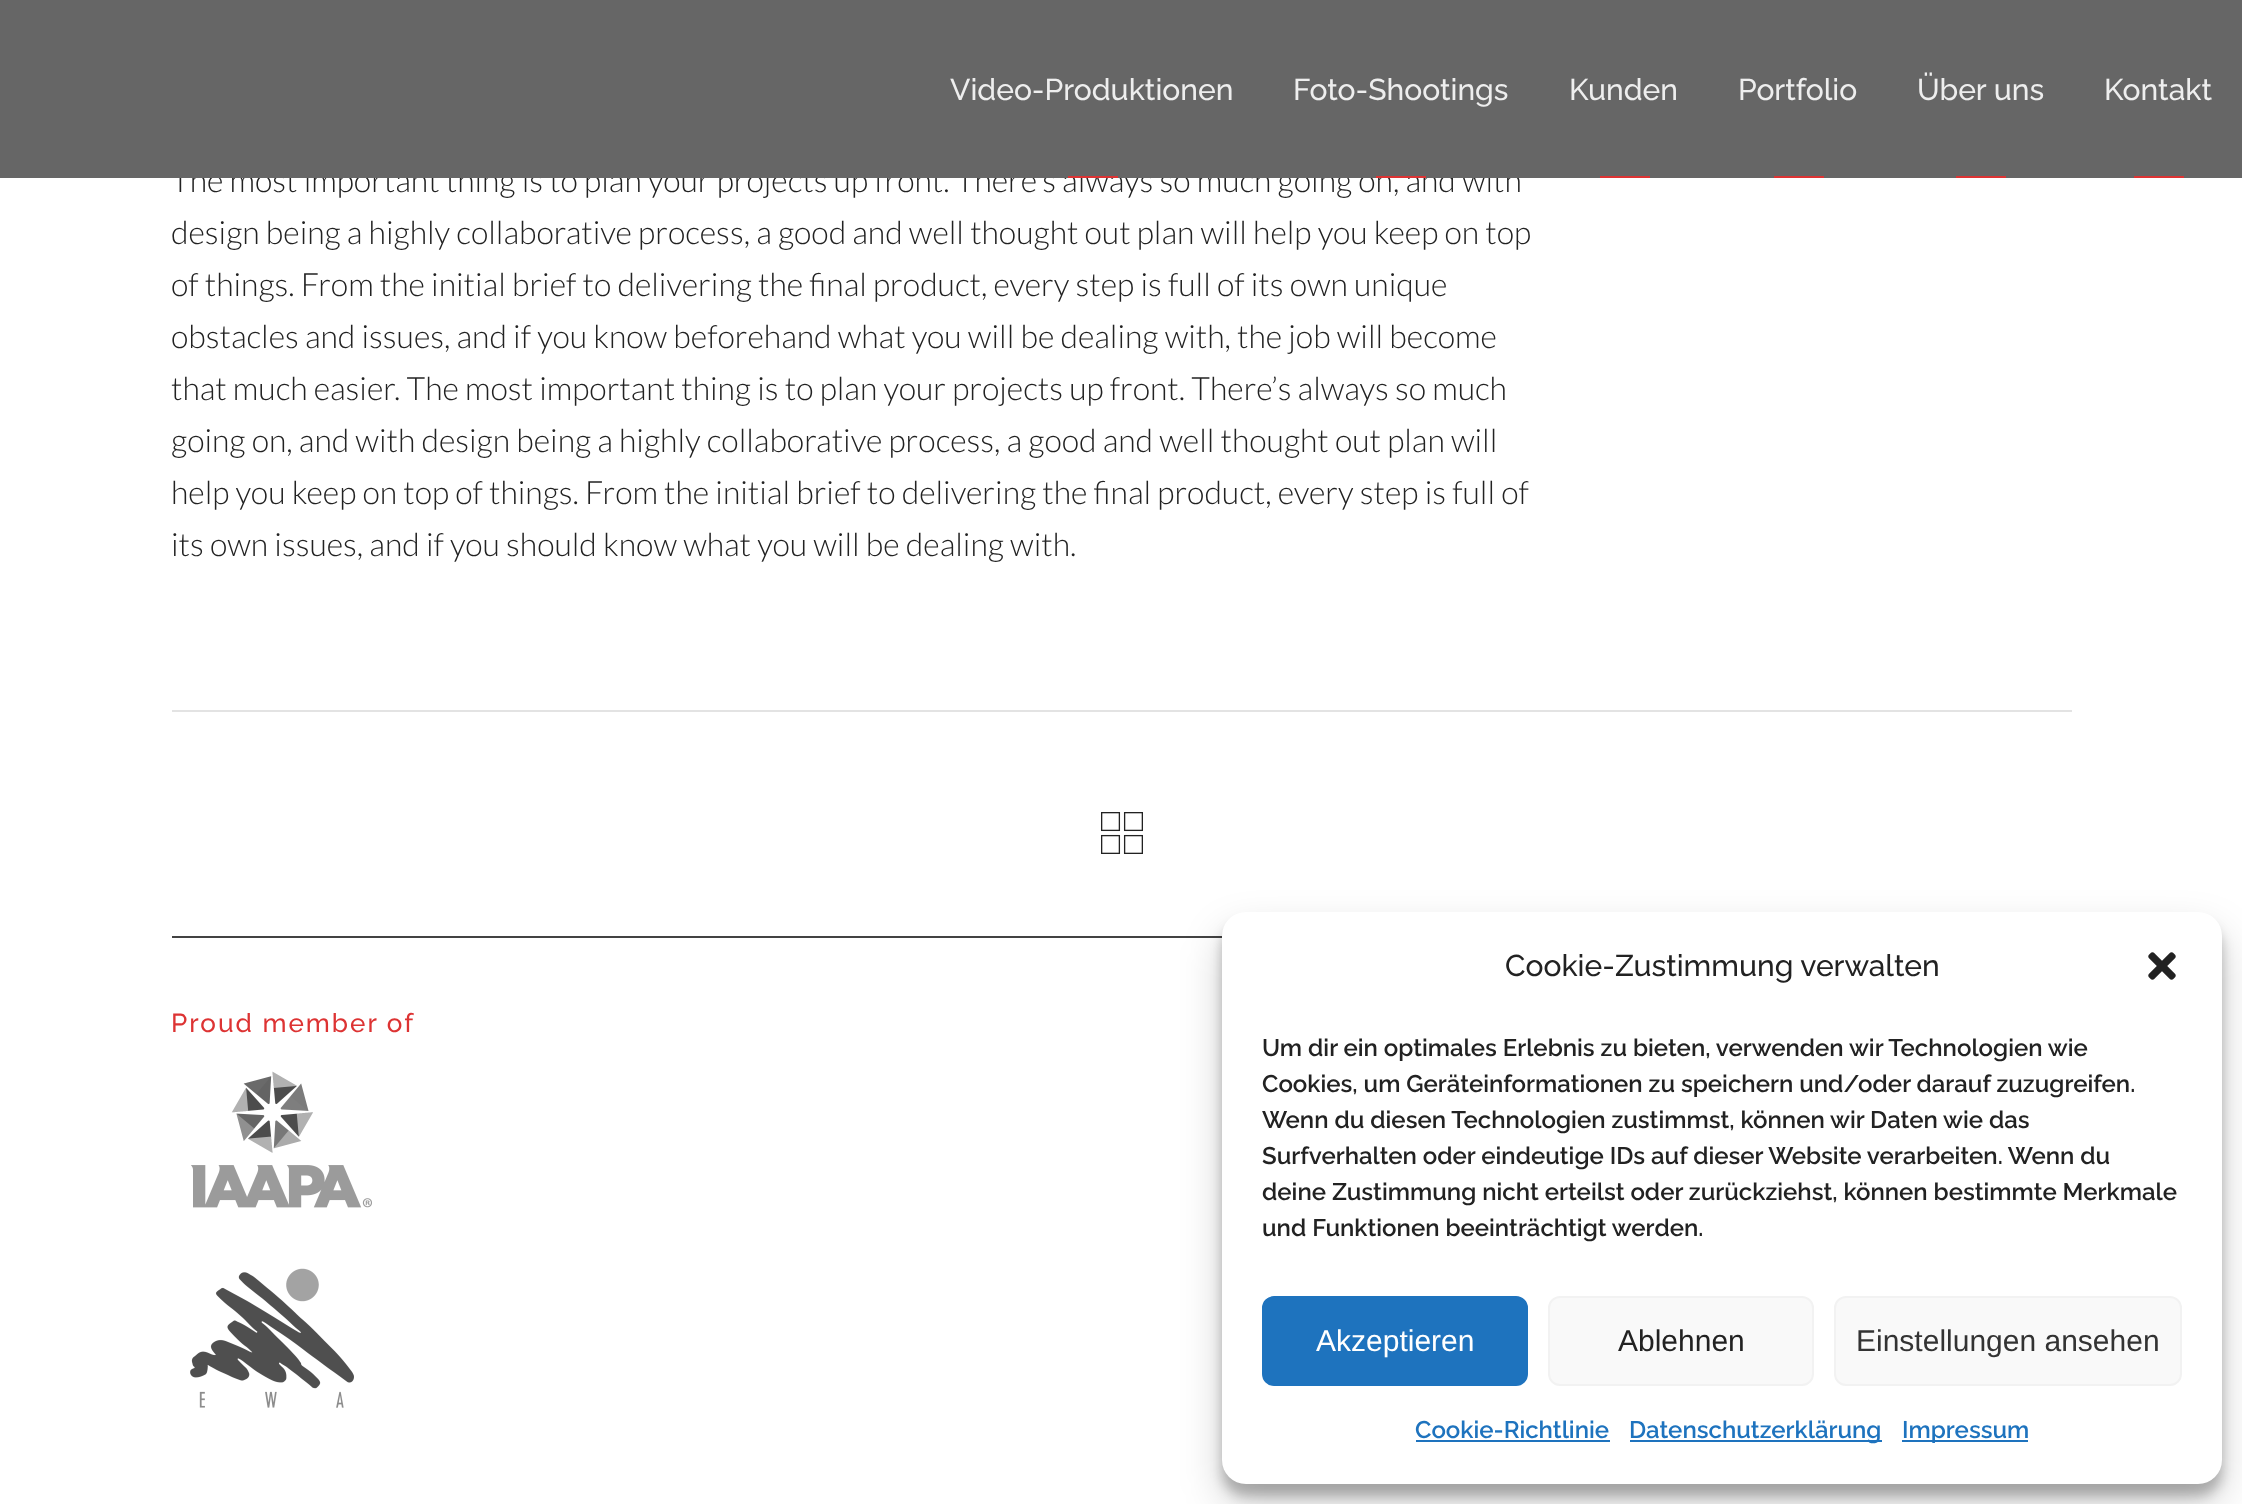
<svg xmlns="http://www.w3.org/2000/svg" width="2242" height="1504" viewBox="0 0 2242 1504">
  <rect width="100%" height="100%" fill="rgb(255,255,255)"/>
  <text x="171" y="192" font-family="Lato" font-size="32" font-weight="300" fill="rgb(34,34,34)">The most important thing is to plan your projects up front. There’s always so much going on, and with</text>
  <rect x="0" y="0" width="2242" height="178" fill="rgb(102,102,102)"/>
  <text x="950" y="100" font-family="Raleway" font-size="30" font-weight="500" fill="rgb(238,238,238)">Video-Produktionen</text>
  <rect x="1068" y="176" width="50" height="2" fill="rgb(221,51,51)"/>
  <text x="1293" y="100" font-family="Raleway" font-size="30" font-weight="500" fill="rgb(238,238,238)">Foto-Shootings</text>
  <rect x="1376" y="176" width="50" height="2" fill="rgb(221,51,51)"/>
  <text x="1569" y="100" font-family="Raleway" font-size="30" font-weight="500" fill="rgb(238,238,238)">Kunden</text>
  <rect x="1600" y="176" width="50" height="2" fill="rgb(221,51,51)"/>
  <text x="1738" y="100" font-family="Raleway" font-size="30" font-weight="500" fill="rgb(238,238,238)">Portfolio</text>
  <rect x="1774" y="176" width="50" height="2" fill="rgb(221,51,51)"/>
  <text x="1917" y="100" font-family="Raleway" font-size="30" font-weight="500" fill="rgb(238,238,238)">Über uns</text>
  <rect x="1956" y="176" width="50" height="2" fill="rgb(221,51,51)"/>
  <text x="2104" y="100" font-family="Raleway" font-size="30" font-weight="500" fill="rgb(238,238,238)">Kontakt</text>
  <rect x="2134" y="176" width="50" height="2" fill="rgb(221,51,51)"/>
  <g font-family="Lato" font-size="32" font-weight="300" fill="rgb(34,34,34)">
    <text>
      <tspan x="171" y="244">design being a highly collaborative process, a good and well thought out plan will help you keep on top</tspan>
      <tspan x="171" y="296">of things. From the initial brief to delivering the final product, every step is full of its own unique</tspan>
      <tspan x="171" y="348">obstacles and issues, and if you know beforehand what you will be dealing with, the job will become</tspan>
      <tspan x="171" y="400">that much easier. The most important thing is to plan your projects up front. There’s always so much</tspan>
      <tspan x="171" y="452">going on, and with design being a highly collaborative process, a good and well thought out plan will</tspan>
      <tspan x="171" y="504">help you keep on top of things. From the initial brief to delivering the final product, every step is full of</tspan>
      <tspan x="171" y="556">its own issues, and if you should know what you will be dealing with.</tspan>
    </text>
  </g>
  <rect x="172" y="710" width="1900" height="2" fill="rgb(227,227,227)"/>
  <image x="1101" y="812" width="42" height="42" href="pic1.png"/>
  <rect x="172" y="936" width="1050" height="2" fill="rgb(67,67,67)"/>
  <text x="171" y="1032" font-family="Raleway" font-size="26" font-weight="500" letter-spacing="2" fill="rgb(221,51,51)">Proud member of</text>
  <image x="191" y="1071" width="181" height="137" href="pic2.png"/>
  <image x="190" y="1268" width="164" height="140" href="pic3.png"/>
  <rect x="1222" y="924" width="1000" height="572" rx="24" fill="rgba(0,0,0,0.23)" filter="blur(6px)"/>
  <rect x="1222" y="932" width="1000" height="572" rx="24" fill="rgba(0,0,0,0.19)" filter="blur(20px)"/>
  <rect x="1222" y="912" width="1000" height="572" rx="24" fill="rgb(255,255,255)"/>
  <text x="1505" y="976" font-family="Raleway" font-size="30" font-weight="500" fill="rgb(34,34,34)">Cookie-Zustimmung verwalten</text>
  <image x="2148" y="952" width="28" height="28" href="pic4.png"/>
  <g font-family="Raleway" font-size="24" font-weight="600" fill="rgb(34,34,34)">
    <text>
      <tspan x="1262" y="1056">Um dir ein optimales Erlebnis zu bieten, verwenden wir Technologien wie</tspan>
      <tspan x="1262" y="1092">Cookies, um Geräteinformationen zu speichern und/oder darauf zuzugreifen.</tspan>
      <tspan x="1262" y="1128">Wenn du diesen Technologien zustimmst, können wir Daten wie das</tspan>
      <tspan x="1262" y="1164">Surfverhalten oder eindeutige IDs auf dieser Website verarbeiten. Wenn du</tspan>
      <tspan x="1262" y="1200">deine Zustimmung nicht erteilst oder zurückziehst, können bestimmte Merkmale</tspan>
      <tspan x="1262" y="1236">und Funktionen beeinträchtigt werden.</tspan>
    </text>
  </g>
  <rect x="1263" y="1297" width="264" height="88" rx="11" fill="rgb(30,115,190)" stroke="rgb(30,115,190)" stroke-width="2"/>
  <text x="1316" y="1351" font-family="Liberation Sans" font-size="30" fill="rgb(255,255,255)">Akzeptieren</text>
  <rect x="1549" y="1297" width="264" height="88" rx="11" fill="rgb(249,249,249)" stroke="rgb(242,242,242)" stroke-width="2"/>
  <text x="1618" y="1351" font-family="Liberation Sans" font-size="30" fill="rgb(34,34,34)">Ablehnen</text>
  <rect x="1835" y="1297" width="346" height="88" rx="11" fill="rgb(249,249,249)" stroke="rgb(242,242,242)" stroke-width="2"/>
  <text x="1856" y="1351" font-family="Liberation Sans" font-size="30" fill="rgb(51,51,51)">Einstellungen ansehen</text>
  <text x="1415" y="1438" font-family="Raleway" font-size="24" font-weight="600" fill="rgb(30,115,190)">Cookie-Richtlinie</text>
  <rect x="1416" y="1440" width="194" height="2" fill="rgb(30,115,190)"/>
  <rect x="1630" y="1440" width="252" height="2" fill="rgb(30,115,190)"/>
  <text x="1629" y="1438" font-family="Raleway" font-size="24" font-weight="600" fill="rgb(30,115,190)">Datenschutzerklärung</text>
  <rect x="1902" y="1440" width="126" height="2" fill="rgb(30,115,190)"/>
  <text x="1902" y="1438" font-family="Raleway" font-size="24" font-weight="600" fill="rgb(30,115,190)">Impressum</text>
</svg>
